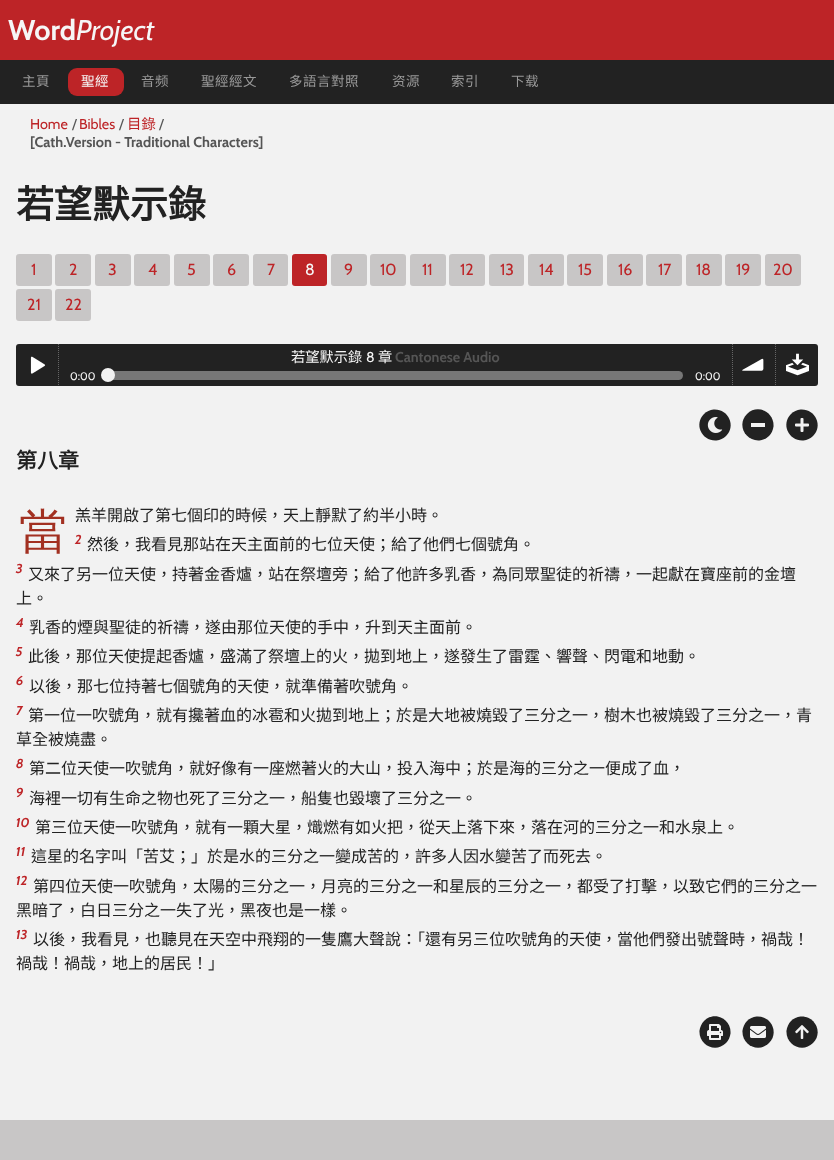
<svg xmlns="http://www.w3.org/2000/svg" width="834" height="1160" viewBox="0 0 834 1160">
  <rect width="100%" height="100%" fill="rgb(242,242,242)"/>
  <rect x="0" y="0" width="834" height="60" fill="rgb(189,36,39)"/>
  <text x="8" y="40" font-family="Cabin" font-size="28.5" font-weight="bold" fill="rgb(246,246,246)">Word</text>
  <text x="76" y="40" font-family="Cabin" font-size="28.5" font-style="italic" fill="rgb(246,246,246)">Project</text>
  <rect x="0" y="60" width="834" height="44" fill="rgb(34,34,34)"/>
  <text x="22" y="86" font-family="Noto Sans CJK HK" font-size="13.5" letter-spacing="0.5" fill="rgb(153,153,153)">主頁</text>
  <rect x="68" y="68" width="56" height="28" rx="9" fill="rgb(189,36,39)"/>
  <text x="81" y="86" font-family="Noto Sans CJK HK" font-size="13.5" letter-spacing="0.5" fill="rgb(246,246,246)">聖經</text>
  <g font-family="Noto Sans CJK HK" font-size="13.5" letter-spacing="0.5" fill="rgb(153,153,153)">
    <text x="141" y="86">音频</text>
    <text x="201" y="86">聖經經文</text>
    <text x="289" y="86">多語言對照</text>
    <text x="392" y="86">资源</text>
    <text x="451" y="86">索引</text>
    <text x="511" y="86">下载</text>
  </g>
  <text x="30" y="129" font-family="Cabin" font-size="14.4" fill="rgb(189,36,39)">Home</text>
  <text x="72" y="129" font-family="Cabin" font-size="14.4" fill="rgb(85,85,85)">/</text>
  <text x="79" y="129" font-family="Cabin" font-size="14.4" fill="rgb(189,36,39)">Bibles</text>
  <text x="119" y="129" font-family="Cabin" font-size="14.4" fill="rgb(85,85,85)">/</text>
  <text x="127" y="129" font-family="Noto Sans CJK HK" font-size="14.4" fill="rgb(189,36,39)">目錄</text>
  <text x="159" y="129" font-family="Cabin" font-size="14.4" fill="rgb(85,85,85)">/</text>
  <text x="30" y="147" font-family="Cabin" font-size="14.4" font-weight="bold" fill="rgb(85,85,85)">[Cath.Version - Traditional Characters]</text>
  <text x="16" y="218" font-family="Noto Sans CJK HK" font-size="38" font-weight="bold" fill="rgb(34,34,34)">若望默示錄</text>
  <rect x="16" y="254" width="36" height="32" rx="3" fill="rgb(200,198,198)"/>
  <text x="31" y="275" font-family="Cabin" font-size="16" fill="rgb(189,36,39)">1</text>
  <rect x="55" y="254" width="36" height="32" rx="3" fill="rgb(200,198,198)"/>
  <text x="69" y="275" font-family="Cabin" font-size="16" fill="rgb(189,36,39)">2</text>
  <rect x="95" y="254" width="36" height="32" rx="3" fill="rgb(200,198,198)"/>
  <text x="108" y="275" font-family="Cabin" font-size="16" fill="rgb(189,36,39)">3</text>
  <rect x="134" y="254" width="36" height="32" rx="3" fill="rgb(200,198,198)"/>
  <text x="148" y="275" font-family="Cabin" font-size="16" fill="rgb(189,36,39)">4</text>
  <rect x="174" y="254" width="36" height="32" rx="3" fill="rgb(200,198,198)"/>
  <text x="187" y="275" font-family="Cabin" font-size="16" fill="rgb(189,36,39)">5</text>
  <rect x="213" y="254" width="36" height="32" rx="3" fill="rgb(200,198,198)"/>
  <text x="227" y="275" font-family="Cabin" font-size="16" fill="rgb(189,36,39)">6</text>
  <rect x="253" y="254" width="35" height="32" rx="3" fill="rgb(200,198,198)"/>
  <text x="267" y="275" font-family="Cabin" font-size="16" fill="rgb(189,36,39)">7</text>
  <rect x="292" y="254" width="35" height="32" rx="3" fill="rgb(189,36,39)"/>
  <text x="305" y="275" font-family="Cabin" font-size="16" fill="rgb(246,246,246)">8</text>
  <rect x="331" y="254" width="36" height="32" rx="3" fill="rgb(200,198,198)"/>
  <text x="344" y="275" font-family="Cabin" font-size="16" fill="rgb(189,36,39)">9</text>
  <rect x="370" y="254" width="36" height="32" rx="3" fill="rgb(200,198,198)"/>
  <text x="380" y="275" font-family="Cabin" font-size="16" fill="rgb(189,36,39)">10</text>
  <rect x="410" y="254" width="36" height="32" rx="3" fill="rgb(200,198,198)"/>
  <text x="422" y="275" font-family="Cabin" font-size="16" fill="rgb(189,36,39)">11</text>
  <rect x="449" y="254" width="36" height="32" rx="3" fill="rgb(200,198,198)"/>
  <text x="460" y="275" font-family="Cabin" font-size="16" fill="rgb(189,36,39)">12</text>
  <rect x="489" y="254" width="35" height="32" rx="3" fill="rgb(200,198,198)"/>
  <text x="500" y="275" font-family="Cabin" font-size="16" fill="rgb(189,36,39)">13</text>
  <rect x="528" y="254" width="36" height="32" rx="3" fill="rgb(200,198,198)"/>
  <text x="539" y="275" font-family="Cabin" font-size="16" fill="rgb(189,36,39)">14</text>
  <rect x="567" y="254" width="36" height="32" rx="3" fill="rgb(200,198,198)"/>
  <text x="578" y="275" font-family="Cabin" font-size="16" fill="rgb(189,36,39)">15</text>
  <rect x="607" y="254" width="36" height="32" rx="3" fill="rgb(200,198,198)"/>
  <text x="618" y="275" font-family="Cabin" font-size="16" fill="rgb(189,36,39)">16</text>
  <rect x="646" y="254" width="36" height="32" rx="3" fill="rgb(200,198,198)"/>
  <text x="658" y="275" font-family="Cabin" font-size="16" fill="rgb(189,36,39)">17</text>
  <rect x="686" y="254" width="36" height="32" rx="3" fill="rgb(200,198,198)"/>
  <text x="696" y="275" font-family="Cabin" font-size="16" fill="rgb(189,36,39)">18</text>
  <rect x="725" y="254" width="36" height="32" rx="3" fill="rgb(200,198,198)"/>
  <text x="736" y="275" font-family="Cabin" font-size="16" fill="rgb(189,36,39)">19</text>
  <rect x="765" y="254" width="36" height="32" rx="3" fill="rgb(200,198,198)"/>
  <text x="773" y="275" font-family="Cabin" font-size="16" fill="rgb(189,36,39)">20</text>
  <rect x="16" y="289" width="36" height="32" rx="3" fill="rgb(200,198,198)"/>
  <text x="27" y="310" font-family="Cabin" font-size="16" fill="rgb(189,36,39)">21</text>
  <rect x="55" y="289" width="36" height="32" rx="3" fill="rgb(200,198,198)"/>
  <text x="65" y="310" font-family="Cabin" font-size="16" fill="rgb(189,36,39)">22</text>
  <rect x="16" y="344" width="802" height="42" rx="3" fill="rgb(34,34,34)"/>
  <path d="M58.5 344V386" fill="none" stroke="rgb(102,102,102)" stroke-dasharray="1 1"/>
  <image x="30" y="356" width="16" height="18" href="pic1.png"/>
  <path d="M732.5 344V386" fill="none" stroke="rgb(102,102,102)" stroke-dasharray="1 1"/>
  <text x="291" y="362" font-family="Noto Sans CJK HK" font-size="14.25" fill="rgb(246,246,246)">若望默示錄</text>
  <text x="366" y="362" font-family="Cabin" font-size="14.25" fill="rgb(246,246,246)">8</text>
  <text x="378" y="362" font-family="Noto Sans CJK HK" font-size="14.25" fill="rgb(246,246,246)">章</text>
  <text x="395" y="362" font-family="Cabin" font-size="14.25" font-weight="bold" fill="rgb(85,85,85)">Cantonese Audio</text>
  <text x="70" y="380" font-family="Cabin" font-size="11" fill="rgb(246,246,246)">0:00</text>
  <rect x="108" y="371" width="575" height="9" rx="4.5" fill="rgb(119,119,119)"/>
  <circle cx="108" cy="375" r="7" fill="rgb(242,242,242)"/>
  <text x="695" y="380" font-family="Cabin" font-size="11" fill="rgb(246,246,246)">0:00</text>
  <path d="M775.5 344V386" fill="none" stroke="rgb(102,102,102)" stroke-dasharray="1 1"/>
  <image x="742" y="358" width="22" height="13" href="pic2.png"/>
  <image x="742" y="358" width="22" height="13" href="pic3.png"/>
  <image x="786" y="353" width="23" height="23" href="pic4.png"/>
  <path d="M704 414C706.5 411.5 710 410 713.5 409.5C728 408.5 736.5 425.5 726 436C723.5 438.5 720 440 716.5 440.5C702 441.5 693.5 424.5 704 414Z" fill="rgb(34,34,34)"/>
  <image x="707" y="417" width="16" height="16" href="pic5.png"/>
  <path d="M747 414C757.5 403.5 774.5 412 773.5 426.5C773 430 771.5 433.5 769 436C766.5 438.5 763 440 759.5 440.5C745 441.5 736.5 424.5 747 414Z" fill="rgb(34,34,34)"/>
  <rect x="751" y="423" width="14" height="4" fill="rgb(242,242,242)"/>
  <path d="M791 414C793.5 411.5 797 410 800.5 409.5C815 408.5 823.5 425.5 813 436C810.5 438.5 807 440 803.5 440.5C789 441.5 780.5 424.5 791 414Z" fill="rgb(34,34,34)"/>
  <image x="795" y="418" width="14" height="14" href="pic6.png"/>
  <text x="16" y="468" font-family="Noto Sans CJK HK" font-size="21" font-weight="bold" fill="rgb(34,34,34)">第八章</text>
  <text x="19" y="548" font-family="Noto Sans" font-size="48" font-weight="100" fill="rgb(162,48,33)">當</text>
  <text x="75" y="521" font-family="Noto Sans CJK HK" font-size="16" fill="rgb(34,34,34)">羔羊開啟了第七個印的時候，天上靜默了約半小時。</text>
  <text x="75" y="544" font-family="Cabin" font-size="13" font-weight="bold" font-style="italic" fill="rgb(189,36,39)">2</text>
  <text x="87" y="550" font-family="Noto Sans CJK HK" font-size="16" fill="rgb(34,34,34)">然後，我看見那站在天主面前的七位天使；給了他們七個號角。</text>
  <text x="16" y="573" font-family="Cabin" font-size="13" font-weight="bold" font-style="italic" fill="rgb(189,36,39)">3</text>
  <g font-family="Noto Sans CJK HK" font-size="16" fill="rgb(34,34,34)">
    <text x="28" y="580">又來了另一位天使，持著金香爐，站在祭壇旁；給了他許多乳香，為同眾聖徒的祈禱，一起獻在寶座前的金壇</text>
    <text x="16" y="604">上。</text>
  </g>
  <text x="16" y="627" font-family="Cabin" font-size="13" font-weight="bold" font-style="italic" fill="rgb(189,36,39)">4</text>
  <text x="29" y="633" font-family="Noto Sans CJK HK" font-size="16" fill="rgb(34,34,34)">乳香的煙與聖徒的祈禱，遂由那位天使的手中，升到天主面前。</text>
  <text x="16" y="656" font-family="Cabin" font-size="13" font-weight="bold" font-style="italic" fill="rgb(189,36,39)">5</text>
  <text x="28" y="662" font-family="Noto Sans CJK HK" font-size="16" fill="rgb(34,34,34)">此後，那位天使提起香爐，盛滿了祭壇上的火，拋到地上，遂發生了雷霆、響聲、閃電和地動。</text>
  <text x="16" y="685" font-family="Cabin" font-size="13" font-weight="bold" font-style="italic" fill="rgb(189,36,39)">6</text>
  <text x="29" y="692" font-family="Noto Sans CJK HK" font-size="16" fill="rgb(34,34,34)">以後，那七位持著七個號角的天使，就準備著吹號角。</text>
  <text x="16" y="715" font-family="Cabin" font-size="13" font-weight="bold" font-style="italic" fill="rgb(189,36,39)">7</text>
  <g font-family="Noto Sans CJK HK" font-size="16" fill="rgb(34,34,34)">
    <text x="28" y="721">第一位一吹號角，就有攙著血的冰雹和火拋到地上；於是大地被燒毀了三分之一，樹木也被燒毀了三分之一，青</text>
    <text x="16" y="745">草全被燒盡。</text>
  </g>
  <text x="16" y="768" font-family="Cabin" font-size="13" font-weight="bold" font-style="italic" fill="rgb(189,36,39)">8</text>
  <text x="29" y="774" font-family="Noto Sans CJK HK" font-size="16" fill="rgb(34,34,34)">第二位天使一吹號角，就好像有一座燃著火的大山，投入海中；於是海的三分之一便成了血，</text>
  <text x="16" y="797" font-family="Cabin" font-size="13" font-weight="bold" font-style="italic" fill="rgb(189,36,39)">9</text>
  <text x="29" y="804" font-family="Noto Sans CJK HK" font-size="16" fill="rgb(34,34,34)">海裡一切有生命之物也死了三分之一，船隻也毀壞了三分之一。</text>
  <text x="16" y="827" font-family="Cabin" font-size="13" font-weight="bold" font-style="italic" fill="rgb(189,36,39)">10</text>
  <text x="35" y="833" font-family="Noto Sans CJK HK" font-size="16" fill="rgb(34,34,34)">第三位天使一吹號角，就有一顆大星，熾燃有如火把，從天上落下來，落在河的三分之一和水泉上。</text>
  <text x="16" y="856" font-family="Cabin" font-size="13" font-weight="bold" font-style="italic" fill="rgb(189,36,39)">11</text>
  <text x="31" y="862" font-family="Noto Sans CJK HK" font-size="16" fill="rgb(34,34,34)">這星的名字叫「苦艾；」於是水的三分之一變成苦的，許多人因水變苦了而死去。</text>
  <text x="16" y="885" font-family="Cabin" font-size="13" font-weight="bold" font-style="italic" fill="rgb(189,36,39)">12</text>
  <g font-family="Noto Sans CJK HK" font-size="16" fill="rgb(34,34,34)">
    <text x="33" y="892">第四位天使一吹號角，太陽的三分之一，月亮的三分之一和星辰的三分之一，都受了打擊，以致它們的三分之一</text>
    <text x="16" y="916">黑暗了，白日三分之一失了光，黑夜也是一樣。</text>
  </g>
  <text x="16" y="939" font-family="Cabin" font-size="13" font-weight="bold" font-style="italic" fill="rgb(189,36,39)">13</text>
  <g font-family="Noto Sans CJK HK" font-size="16" fill="rgb(34,34,34)">
    <text x="33" y="945">以後，我看見，也聽見在天空中飛翔的一隻鷹大聲說：「還有另三位吹號角的天使，當他們發出號聲時，禍哉！</text>
    <text x="16" y="969">禍哉！禍哉，地上的居民！」</text>
  </g>
  <path d="M704 1021C714.5 1010.5 731.5 1019 730.5 1033.5C730 1037 728.5 1040.5 726 1043C715.5 1053.5 698.5 1045 699.5 1030.5C700 1027 701.5 1023.5 704 1021Z" fill="rgb(34,34,34)"/>
  <image x="707" y="1024" width="16" height="16" href="pic7.png"/>
  <path d="M747 1021C749.5 1018.5 753 1017 756.5 1016.5C771 1015.5 779.5 1032.5 769 1043C758.5 1053.5 741.5 1045 742.5 1030.5C743 1027 744.5 1023.5 747 1021Z" fill="rgb(34,34,34)"/>
  <image x="750" y="1026" width="16" height="12" href="pic8.png"/>
  <path d="M791 1021C793.5 1018.5 797 1017 800.5 1016.5C815 1015.5 823.5 1032.5 813 1043C802.5 1053.5 785.5 1045 786.5 1030.5C787 1027 788.5 1023.5 791 1021Z" fill="rgb(34,34,34)"/>
  <image x="795" y="1025" width="14" height="14" href="pic9.png"/>
  <rect x="0" y="1120" width="834" height="40" fill="rgb(200,198,198)"/>
</svg>
